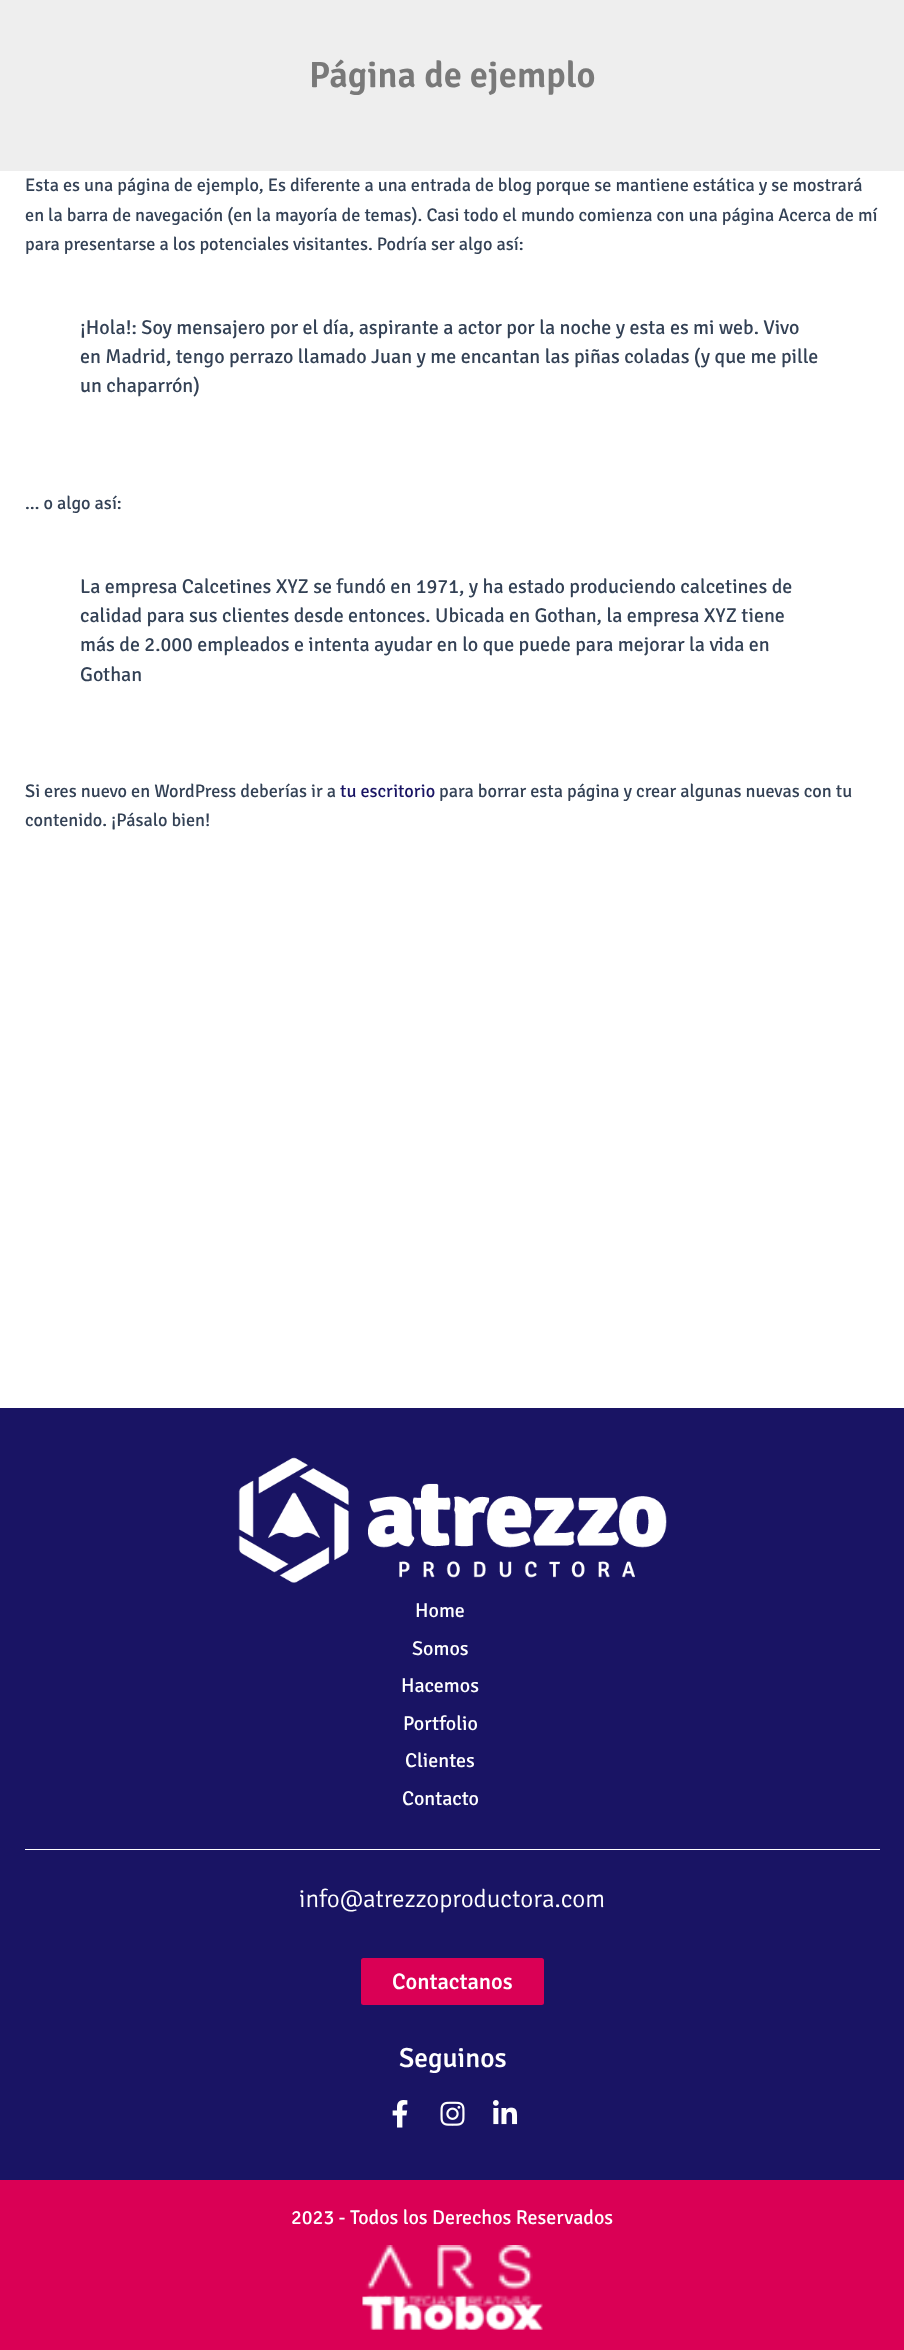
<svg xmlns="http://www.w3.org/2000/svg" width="904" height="2350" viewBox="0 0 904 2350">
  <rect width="100%" height="100%" fill="rgb(255,255,255)"/>
  <rect x="0" y="0" width="904" height="171" fill="rgb(238,238,238)"/>
  <text x="309" y="87" font-family="Signika" font-size="36.5" font-weight="600" fill="rgb(121,121,121)">Página de ejemplo</text>
  <g font-family="Signika" font-size="18.25" fill="rgb(51,65,85)">
    <text>
      <tspan x="25" y="191">Esta es una página de ejemplo, Es diferente a una entrada de blog porque se mantiene estática y se mostrará</tspan>
      <tspan x="25" y="221">en la barra de navegación (en la mayoría de temas). Casi todo el mundo comienza con una página Acerca de mí</tspan>
      <tspan x="25" y="250">para presentarse a los potenciales visitantes. Podría ser algo así:</tspan>
    </text>
  </g>
  <g font-family="Signika" font-size="20.05" fill="rgb(51,65,85)">
    <text>
      <tspan x="80" y="334">¡Hola!: Soy mensajero por el día, aspirante a actor por la noche y esta es mi web. Vivo</tspan>
      <tspan x="80" y="363">en Madrid, tengo perrazo llamado Juan y me encantan las piñas coladas (y que me pille</tspan>
      <tspan x="80" y="392">un chaparrón)</tspan>
    </text>
  </g>
  <text x="25" y="509" font-family="Signika" font-size="18.25" fill="rgb(51,65,85)">… o algo así:</text>
  <g font-family="Signika" font-size="20.05" fill="rgb(51,65,85)">
    <text>
      <tspan x="80" y="593">La empresa Calcetines XYZ se fundó en 1971, y ha estado produciendo calcetines de</tspan>
      <tspan x="80" y="622">calidad para sus clientes desde entonces. Ubicada en Gothan, la empresa XYZ tiene</tspan>
      <tspan x="80" y="651">más de 2.000 empleados e intenta ayudar en lo que puede para mejorar la vida en</tspan>
      <tspan x="80" y="681">Gothan</tspan>
    </text>
  </g>
  <text x="25" y="797" font-family="Signika" font-size="18.25" fill="rgb(51,65,85)">Si eres nuevo en WordPress deberías ir a</text>
  <text x="340" y="797" font-family="Signika" font-size="18.25" fill="rgb(25,20,100)">tu escritorio</text>
  <g font-family="Signika" font-size="18.25" fill="rgb(51,65,85)">
    <text x="439" y="797">para borrar esta página y crear algunas nuevas con tu</text>
    <text x="25" y="826">contenido. ¡Pásalo bien!</text>
  </g>
  <rect x="0" y="1408" width="904" height="772" fill="rgb(25,20,100)"/>
  <image x="238" y="1457" width="429" height="126" href="pic1.png"/>
  <rect x="25" y="1849" width="855" height="1" fill="rgb(255,255,255)"/>
  <g font-family="Signika" font-size="20" fill="rgb(255,255,255)">
    <text x="415" y="1617">Home</text>
    <text x="412" y="1655">Somos</text>
    <text x="401" y="1692">Hacemos</text>
    <text x="403" y="1730">Portfolio</text>
    <text x="405" y="1767">Clientes</text>
    <text x="402" y="1805">Contacto</text>
  </g>
  <text x="299" y="1907" font-family="Signika" font-size="25" font-weight="300" fill="rgb(255,255,255)">info@atrezzoproductora.com</text>
  <rect x="361" y="1958" width="183" height="47" rx="2.5" fill="rgb(218,0,85)"/>
  <text x="392" y="1989" font-family="Signika" font-size="22.5" font-weight="500" fill="rgb(255,255,255)">Contactanos</text>
  <text x="399" y="2067" font-family="Signika" font-size="27.5" font-weight="500" fill="rgb(255,255,255)">Seguinos</text>
  <image x="392" y="2100" width="16" height="28" href="pic2.png"/>
  <image x="440" y="2101" width="25" height="25" href="pic3.png"/>
  <image x="493" y="2100" width="25" height="25" href="pic4.png"/>
  <rect x="0" y="2180" width="904" height="170" fill="rgb(218,0,85)"/>
  <text x="291" y="2224" font-family="Signika" font-size="20" fill="rgb(255,255,255)">2023 - Todos los Derechos Reservados</text>
  <image x="365" y="2245" width="168" height="62" href="pic5.png"/>
  <image x="362" y="2296" width="181" height="34" href="pic6.png"/>
</svg>
